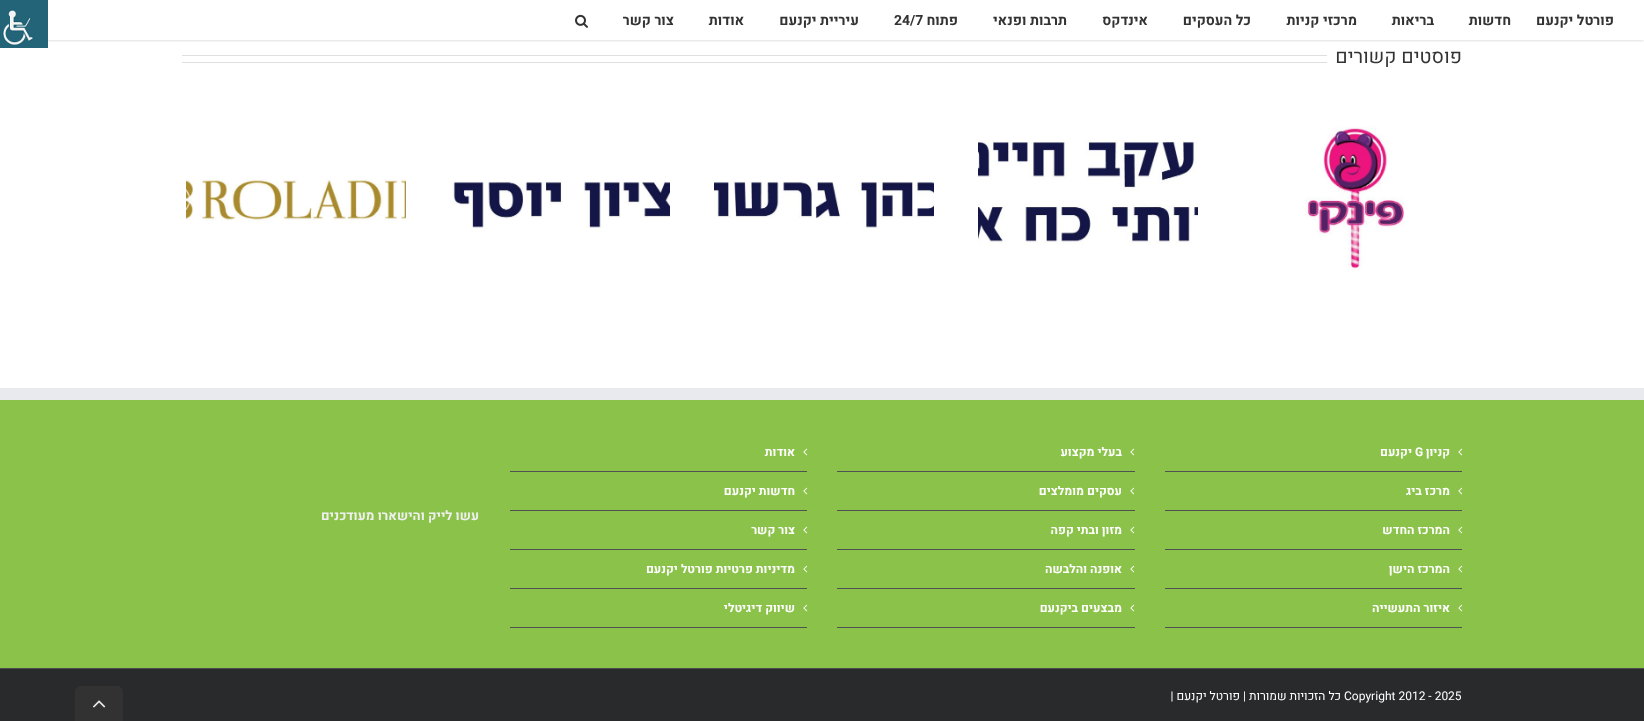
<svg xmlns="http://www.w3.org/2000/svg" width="1644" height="721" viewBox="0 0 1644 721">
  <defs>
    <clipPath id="clip1"><rect x="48" y="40" width="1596" height="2"/></clipPath>
  </defs>
  <rect width="100%" height="100%" fill="rgb(255,255,255)"/>
  <g clip-path="url(#clip1)">
    <rect x="0" y="1" width="1644" height="40" fill="rgba(0,0,0,0.12)" filter="blur(1.5px)"/>
  </g>
  <g font-family="Heebo" font-size="14" font-weight="bold" direction="rtl" fill="rgb(51,51,51)">
    <text x="1614" y="25">פורטל יקנעם</text>
    <text x="1511" y="25">חדשות</text>
    <text x="1434" y="25">בריאות</text>
    <text x="1357" y="25">מרכזי קניות</text>
    <text x="1251" y="25">כל העסקים</text>
    <text x="1148" y="25">אינדקס</text>
    <text x="1067" y="25">תרבות ופנאי</text>
    <text x="958" y="25">פתוח</text>
  </g>
  <text x="894" y="25" font-family="Heebo" font-size="14" font-weight="bold" fill="rgb(51,51,51)">24/7</text>
  <g font-family="Heebo" font-size="14" font-weight="bold" direction="rtl" fill="rgb(51,51,51)">
    <text x="859" y="25">עיריית יקנעם</text>
    <text x="744" y="25">אודות</text>
    <text x="674" y="25">צור קשר</text>
  </g>
  <image x="575" y="14" width="13" height="14" href="pic1.png"/>
  <text x="1462" y="63" font-family="Heebo" font-size="19.5" direction="rtl" fill="rgb(51,51,51)">פוסטים קשורים</text>
  <rect x="182" y="55" width="1145" height="1" fill="rgb(224,222,222)"/>
  <rect x="182" y="62" width="1145" height="1" fill="rgb(224,222,222)"/>
  <image x="1305" y="126" width="100" height="144" href="pic2.png"/>
  <image x="978" y="140" width="220" height="106" href="pic3.png"/>
  <image x="714" y="181" width="220" height="49" href="pic4.png"/>
  <image x="451" y="181" width="219" height="51" href="pic5.png"/>
  <image x="186" y="179" width="220" height="42" href="pic6.png"/>
  <rect x="0" y="400" width="1644" height="268" fill="rgb(139,195,74)"/>
  <rect x="0" y="388" width="1644" height="12" fill="rgb(233,234,238)"/>
  <rect x="1165" y="471" width="297" height="1" fill="rgb(80,81,82)"/>
  <image x="1458" y="448" width="5" height="8" href="pic7.png"/>
  <text x="1450" y="456" font-family="Heebo" font-size="12" font-weight="bold" direction="rtl" fill="rgb(255,255,255)">קניון</text>
  <text x="1415" y="456" font-family="Heebo" font-size="12" font-weight="bold" fill="rgb(255,255,255)">G</text>
  <text x="1412" y="456" font-family="Heebo" font-size="12" font-weight="bold" direction="rtl" fill="rgb(255,255,255)">יקנעם</text>
  <rect x="1165" y="510" width="297" height="1" fill="rgb(80,81,82)"/>
  <image x="1458" y="487" width="5" height="8" href="pic7.png"/>
  <text x="1450" y="495" font-family="Heebo" font-size="12" font-weight="bold" direction="rtl" fill="rgb(255,255,255)">מרכז ביג</text>
  <rect x="1165" y="549" width="297" height="1" fill="rgb(80,81,82)"/>
  <image x="1458" y="526" width="5" height="8" href="pic7.png"/>
  <text x="1450" y="534" font-family="Heebo" font-size="12" font-weight="bold" direction="rtl" fill="rgb(255,255,255)">המרכז החדש</text>
  <rect x="1165" y="588" width="297" height="1" fill="rgb(80,81,82)"/>
  <image x="1458" y="565" width="5" height="8" href="pic7.png"/>
  <text x="1450" y="573" font-family="Heebo" font-size="12" font-weight="bold" direction="rtl" fill="rgb(255,255,255)">המרכז הישן</text>
  <rect x="1165" y="627" width="297" height="1" fill="rgb(80,81,82)"/>
  <image x="1458" y="604" width="5" height="8" href="pic7.png"/>
  <text x="1450" y="612" font-family="Heebo" font-size="12" font-weight="bold" direction="rtl" fill="rgb(255,255,255)">איזור התעשייה</text>
  <rect x="837" y="471" width="298" height="1" fill="rgb(80,81,82)"/>
  <image x="1130" y="448" width="5" height="8" href="pic7.png"/>
  <text x="1122" y="456" font-family="Heebo" font-size="12" font-weight="bold" direction="rtl" fill="rgb(255,255,255)">בעלי מקצוע</text>
  <rect x="837" y="510" width="298" height="1" fill="rgb(80,81,82)"/>
  <image x="1130" y="487" width="5" height="8" href="pic7.png"/>
  <text x="1122" y="495" font-family="Heebo" font-size="12" font-weight="bold" direction="rtl" fill="rgb(255,255,255)">עסקים מומלצים</text>
  <rect x="837" y="549" width="298" height="1" fill="rgb(80,81,82)"/>
  <image x="1130" y="526" width="5" height="8" href="pic7.png"/>
  <text x="1122" y="534" font-family="Heebo" font-size="12" font-weight="bold" direction="rtl" fill="rgb(255,255,255)">מזון ובתי קפה</text>
  <rect x="837" y="588" width="298" height="1" fill="rgb(80,81,82)"/>
  <image x="1130" y="565" width="5" height="8" href="pic7.png"/>
  <text x="1122" y="573" font-family="Heebo" font-size="12" font-weight="bold" direction="rtl" fill="rgb(255,255,255)">אופנה והלבשה</text>
  <rect x="837" y="627" width="298" height="1" fill="rgb(80,81,82)"/>
  <image x="1130" y="604" width="5" height="8" href="pic7.png"/>
  <text x="1122" y="612" font-family="Heebo" font-size="12" font-weight="bold" direction="rtl" fill="rgb(255,255,255)">מבצעים ביקנעם</text>
  <rect x="510" y="471" width="297" height="1" fill="rgb(80,81,82)"/>
  <image x="803" y="448" width="5" height="8" href="pic7.png"/>
  <text x="795" y="456" font-family="Heebo" font-size="12" font-weight="bold" direction="rtl" fill="rgb(255,255,255)">אודות</text>
  <rect x="510" y="510" width="297" height="1" fill="rgb(80,81,82)"/>
  <image x="803" y="487" width="5" height="8" href="pic7.png"/>
  <text x="795" y="495" font-family="Heebo" font-size="12" font-weight="bold" direction="rtl" fill="rgb(255,255,255)">חדשות יקנעם</text>
  <rect x="510" y="549" width="297" height="1" fill="rgb(80,81,82)"/>
  <image x="803" y="526" width="5" height="8" href="pic7.png"/>
  <text x="795" y="534" font-family="Heebo" font-size="12" font-weight="bold" direction="rtl" fill="rgb(255,255,255)">צור קשר</text>
  <rect x="510" y="588" width="297" height="1" fill="rgb(80,81,82)"/>
  <image x="803" y="565" width="5" height="8" href="pic7.png"/>
  <text x="795" y="573" font-family="Heebo" font-size="12" font-weight="bold" direction="rtl" fill="rgb(255,255,255)">מדיניות פרטיות פורטל יקנעם</text>
  <rect x="510" y="627" width="297" height="1" fill="rgb(80,81,82)"/>
  <image x="803" y="604" width="5" height="8" href="pic7.png"/>
  <text x="795" y="612" font-family="Heebo" font-size="12" font-weight="bold" direction="rtl" fill="rgb(255,255,255)">שיווק דיגיטלי</text>
  <text x="479" y="520" font-family="Heebo" font-size="13" font-weight="bold" direction="rtl" fill="rgb(239,239,239)">עשו לייק והישארו מעודכנים</text>
  <rect x="0" y="669" width="1644" height="52" fill="rgb(40,42,43)"/>
  <rect x="0" y="668" width="1644" height="1" fill="rgb(75,76,77)"/>
  <text x="1344" y="700" font-family="Heebo" font-size="12" fill="rgb(255,255,255)">Copyright 2012 - 2025</text>
  <text x="1341" y="700" font-family="Heebo" font-size="12" direction="rtl" fill="rgb(255,255,255)">כל הזכויות שמורות | פורטל יקנעם |</text>
  <path d="M81 686H117C120.5 686 123 688.5 123 692V721H75V692C75 688.5 77.5 686 81 686Z" fill="rgb(50,50,50)"/>
  <image x="93" y="700" width="13" height="8" href="pic8.png"/>
  <image x="0" y="0" width="48" height="48" href="pic9.png"/>
</svg>
